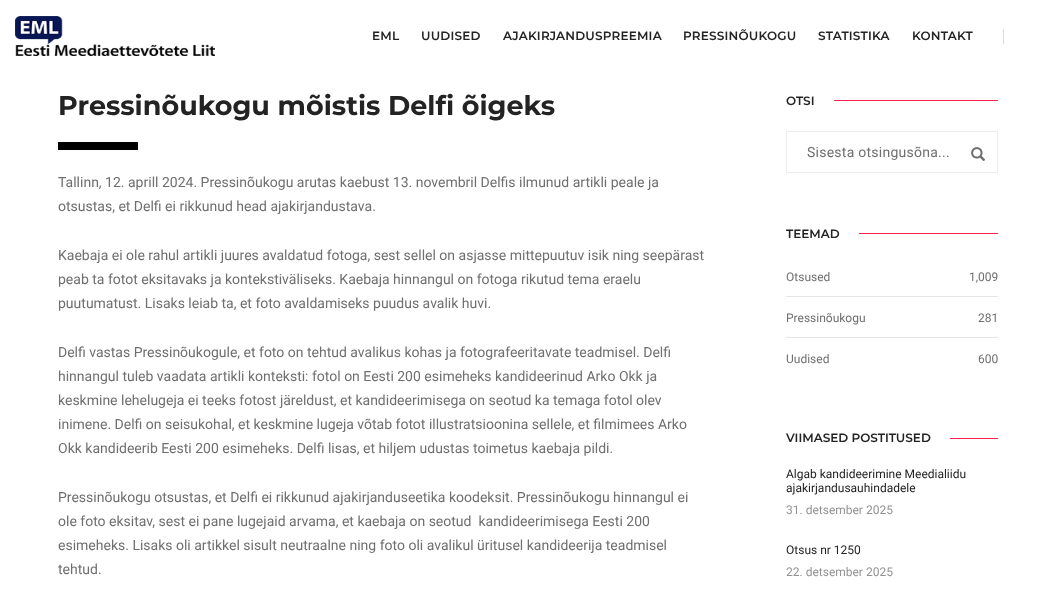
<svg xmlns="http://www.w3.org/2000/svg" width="1056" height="592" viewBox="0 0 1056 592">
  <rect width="100%" height="100%" fill="rgb(255,255,255)"/>
  <image x="15" y="16" width="200" height="40" href="pic1.png"/>
  <g font-family="Montserrat" font-size="12" font-weight="600" letter-spacing="0.2" fill="rgb(35,35,35)">
    <text x="372" y="40">EML</text>
    <text x="421" y="40">UUDISED</text>
    <text x="503" y="40">AJAKIRJANDUSPREEMIA</text>
    <text x="683" y="40">PRESSINÕUKOGU</text>
    <text x="818" y="40">STATISTIKA</text>
    <text x="912" y="40">KONTAKT</text>
  </g>
  <rect x="1003" y="29" width="1" height="15" fill="rgb(217,217,217)"/>
  <text x="58" y="115" font-family="Montserrat" font-size="27" font-weight="bold" fill="rgb(35,35,35)">Pressinõukogu mõistis Delfi õigeks</text>
  <rect x="58" y="142" width="80" height="8" fill="rgb(0,0,0)"/>
  <g font-family="Roboto" font-size="14" fill="rgb(111,111,111)">
    <text>
      <tspan x="58" y="187">Tallinn, 12. aprill 2024. Pressinõukogu arutas kaebust 13. novembril Delfis ilmunud artikli peale ja</tspan>
      <tspan x="58" y="211">otsustas, et Delfi ei rikkunud head ajakirjandustava.</tspan>
    </text>
    <text>
      <tspan x="58" y="260">Kaebaja ei ole rahul artikli juures avaldatud fotoga, sest sellel on asjasse mittepuutuv isik ning seepärast</tspan>
      <tspan x="58" y="284">peab ta fotot eksitavaks ja kontekstiväliseks. Kaebaja hinnangul on fotoga rikutud tema eraelu</tspan>
      <tspan x="58" y="308">puutumatust. Lisaks leiab ta, et foto avaldamiseks puudus avalik huvi.</tspan>
    </text>
    <text>
      <tspan x="58" y="357">Delfi vastas Pressinõukogule, et foto on tehtud avalikus kohas ja fotografeeritavate teadmisel. Delfi</tspan>
      <tspan x="58" y="381">hinnangul tuleb vaadata artikli konteksti: fotol on Eesti 200 esimeheks kandideerinud Arko Okk ja</tspan>
      <tspan x="58" y="405">keskmine lehelugeja ei teeks fotost järeldust, et kandideerimisega on seotud ka temaga fotol olev</tspan>
      <tspan x="58" y="429">inimene. Delfi on seisukohal, et keskmine lugeja võtab fotot illustratsioonina sellele, et filmimees Arko</tspan>
      <tspan x="58" y="453">Okk kandideerib Eesti 200 esimeheks. Delfi lisas, et hiljem udustas toimetus kaebaja pildi.</tspan>
    </text>
    <text xml:space="preserve"><tspan x="58" y="502">Pressinõukogu otsustas, et Delfi ei rikkunud ajakirjanduseetika koodeksit. Pressinõukogu hinnangul ei</tspan><tspan x="58" y="526">ole foto eksitav, sest ei pane lugejaid arvama, et kaebaja on seotud  kandideerimisega Eesti 200</tspan><tspan x="58" y="550">esimeheks. Lisaks oli artikkel sisult neutraalne ning foto oli avalikul üritusel kandideerija teadmisel</tspan><tspan x="58" y="574">tehtud.</tspan></text>
  </g>
  <text x="786" y="105" font-family="Montserrat" font-size="12" font-weight="600" fill="rgb(35,35,35)">OTSI</text>
  <rect x="834" y="100" width="164" height="1" fill="rgb(255,33,79)"/>
  <rect x="786.5" y="131.5" width="211" height="41" fill="none" stroke="rgb(237,237,237)"/>
  <text x="807" y="157" font-family="Roboto" font-size="14" letter-spacing="0.25" fill="rgb(111,111,111)">Sisesta otsingusõna...</text>
  <image x="971" y="147" width="14" height="14" href="pic2.png"/>
  <text x="786" y="238" font-family="Montserrat" font-size="12" font-weight="600" fill="rgb(35,35,35)">TEEMAD</text>
  <rect x="859" y="233" width="139" height="1" fill="rgb(255,33,79)"/>
  <rect x="786" y="296" width="212" height="1" fill="rgb(230,230,230)"/>
  <g font-family="Roboto" font-size="12" fill="rgb(111,111,111)">
    <text x="786" y="281">Otsused</text>
    <text x="969" y="281">1,009</text>
  </g>
  <rect x="786" y="337" width="212" height="1" fill="rgb(230,230,230)"/>
  <g font-family="Roboto" font-size="12" fill="rgb(111,111,111)">
    <text x="786" y="322">Pressinõukogu</text>
    <text x="978" y="322">281</text>
    <text x="786" y="363">Uudised</text>
    <text x="978" y="363">600</text>
  </g>
  <text x="786" y="442" font-family="Montserrat" font-size="12" font-weight="600" fill="rgb(35,35,35)">VIIMASED POSTITUSED</text>
  <rect x="950" y="438" width="48" height="1" fill="rgb(255,33,79)"/>
  <g font-family="Roboto" font-size="12" fill="rgb(35,35,35)">
    <text>
      <tspan x="786" y="478">Algab kandideerimine Meedialiidu</tspan>
      <tspan x="786" y="492">ajakirjandusauhindadele</tspan>
    </text>
  </g>
  <text x="786" y="514" font-family="Roboto" font-size="12" fill="rgb(147,147,147)">31. detsember 2025</text>
  <text x="786" y="554" font-family="Roboto" font-size="12" fill="rgb(35,35,35)">Otsus nr 1250</text>
  <text x="786" y="576" font-family="Roboto" font-size="12" fill="rgb(147,147,147)">22. detsember 2025</text>
</svg>
